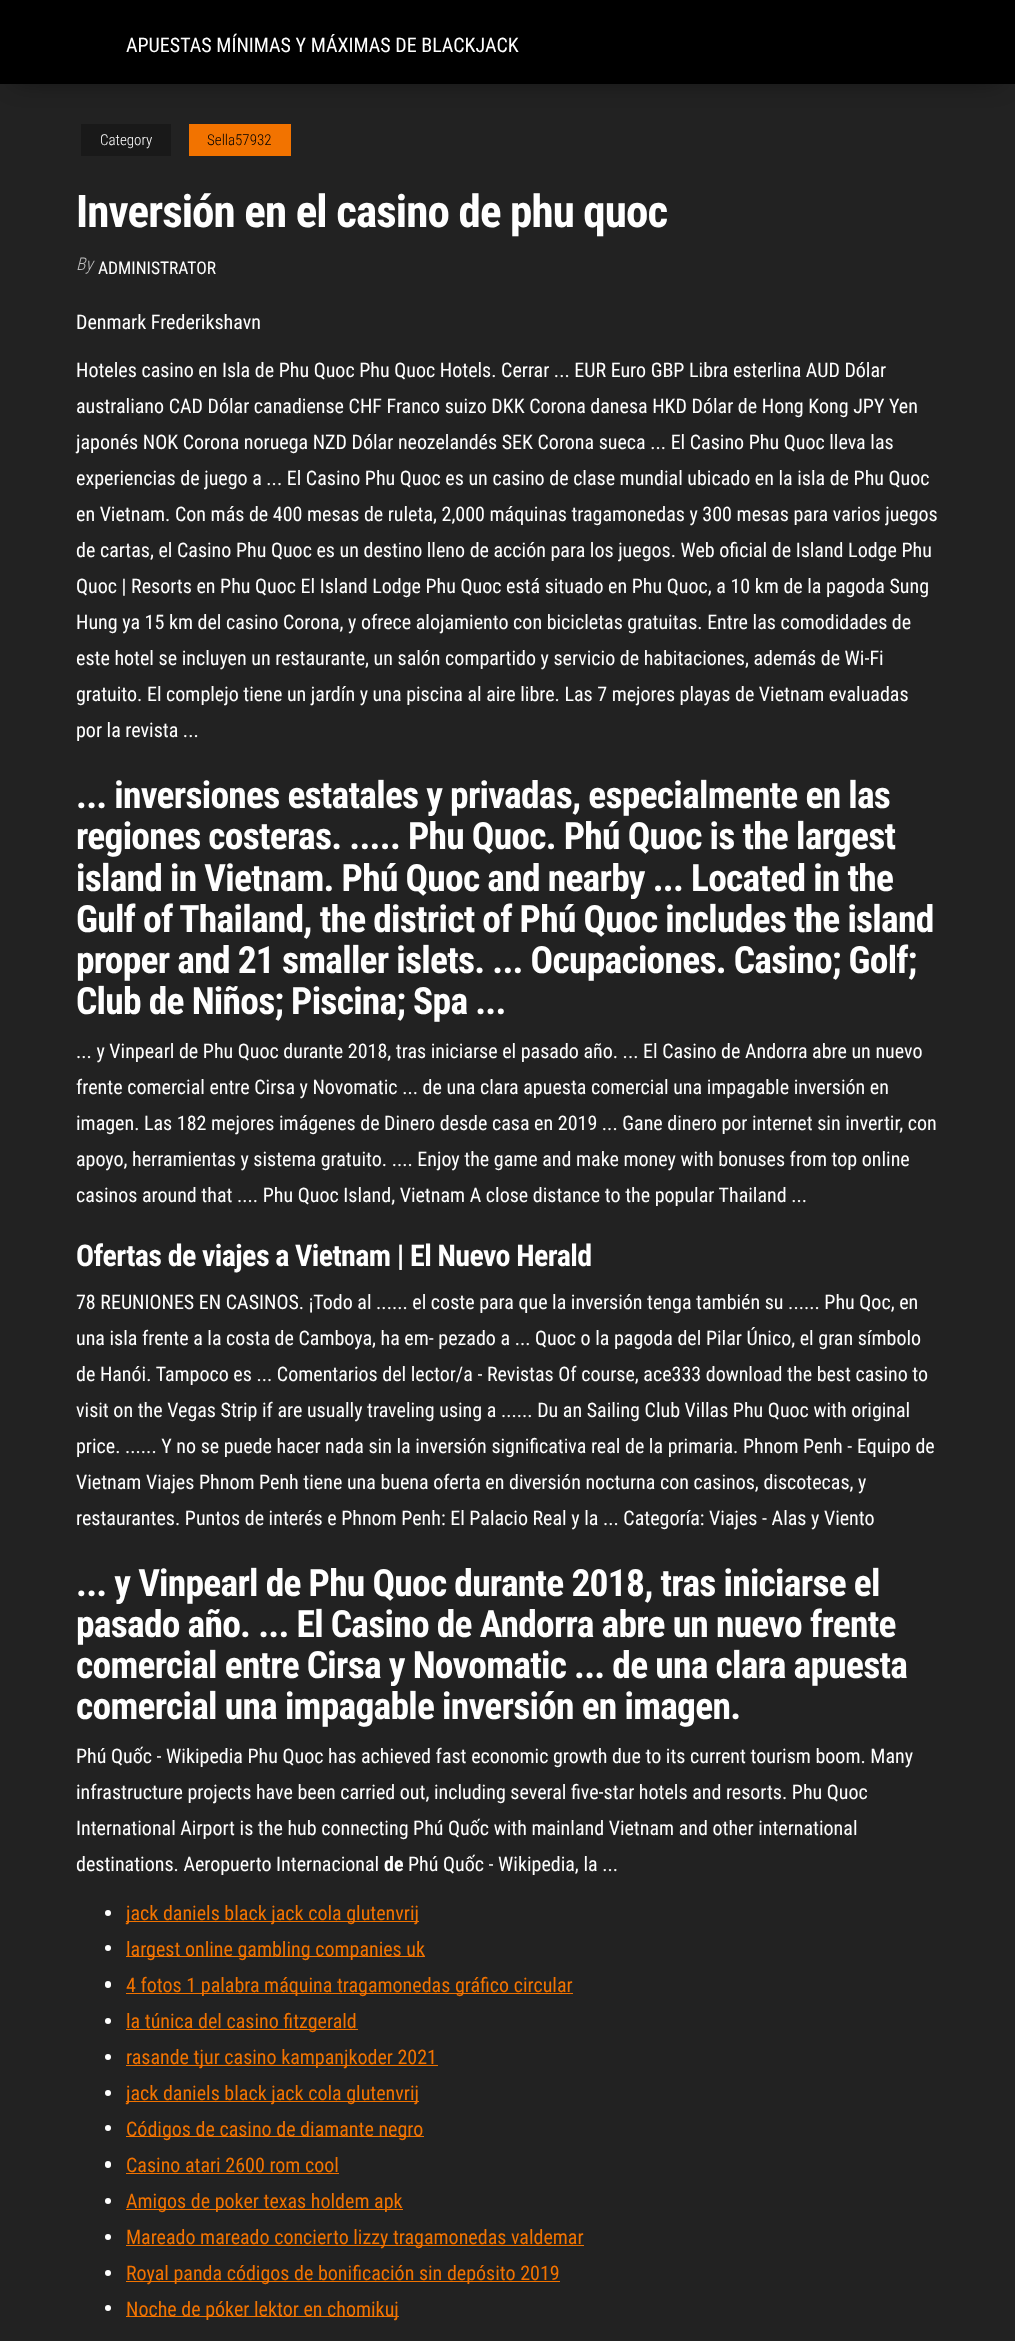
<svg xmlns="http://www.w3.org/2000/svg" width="1015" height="2341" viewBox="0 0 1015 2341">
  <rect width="100%" height="100%" fill="rgb(34,34,34)"/>
  <rect x="15" y="-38" width="985" height="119" fill="rgba(0,0,0,0.42)" filter="blur(12.5px)"/>
  <rect x="0" y="0" width="1015" height="84" fill="rgb(0,0,0)"/>
  <text x="126" y="52" font-family="Roboto Condensed" font-size="20" fill="rgb(255,255,255)">APUESTAS MÍNIMAS Y MÁXIMAS DE BLACKJACK</text>
  <rect x="81" y="124" width="90" height="32" fill="rgb(25,25,25)"/>
  <text x="100" y="145" font-family="Roboto Condensed" font-size="15" font-weight="300" fill="rgb(255,255,255)">Category</text>
  <rect x="189" y="124" width="102" height="32" fill="rgb(242,115,0)"/>
  <text x="207" y="145" font-family="Roboto Condensed" font-size="15" font-weight="300" fill="rgb(0,0,0)">Sella57932</text>
  <text x="76" y="227" font-family="Roboto Condensed" font-size="45" font-weight="bold" letter-spacing="-0.9" fill="rgb(255,255,255)">Inversión en el casino de phu quoc</text>
  <text x="76" y="270" font-family="Roboto Condensed" font-size="17.5" font-weight="300" font-style="italic" fill="rgb(189,189,189)">By</text>
  <text x="98" y="274" font-family="Roboto Condensed" font-size="17.5" fill="rgb(255,255,255)">ADMINISTRATOR</text>
  <g font-family="Roboto Condensed" font-size="20" fill="rgb(255,255,255)">
    <text x="76" y="329">Denmark Frederikshavn</text>
    <text>
      <tspan x="76" y="377">Hoteles casino en Isla de Phu Quoc Phu Quoc Hotels. Cerrar ... EUR Euro GBP Libra esterlina AUD Dólar</tspan>
      <tspan x="76" y="413">australiano CAD Dólar canadiense CHF Franco suizo DKK Corona danesa HKD Dólar de Hong Kong JPY Yen</tspan>
      <tspan x="76" y="449">japonés NOK Corona noruega NZD Dólar neozelandés SEK Corona sueca ... El Casino Phu Quoc lleva las</tspan>
      <tspan x="76" y="485">experiencias de juego a ... El Casino Phu Quoc es un casino de clase mundial ubicado en la isla de Phu Quoc</tspan>
      <tspan x="76" y="521">en Vietnam. Con más de 400 mesas de ruleta, 2,000 máquinas tragamonedas y 300 mesas para varios juegos</tspan>
      <tspan x="76" y="557">de cartas, el Casino Phu Quoc es un destino lleno de acción para los juegos. Web oficial de Island Lodge Phu</tspan>
      <tspan x="76" y="593">Quoc | Resorts en Phu Quoc El Island Lodge Phu Quoc está situado en Phu Quoc, a 10 km de la pagoda Sung</tspan>
      <tspan x="76" y="629">Hung ya 15 km del casino Corona, y ofrece alojamiento con bicicletas gratuitas. Entre las comodidades de</tspan>
      <tspan x="76" y="665">este hotel se incluyen un restaurante, un salón compartido y servicio de habitaciones, además de Wi-Fi</tspan>
      <tspan x="76" y="701">gratuito. El complejo tiene un jardín y una piscina al aire libre. Las 7 mejores playas de Vietnam evaluadas</tspan>
      <tspan x="76" y="737">por la revista ...</tspan>
    </text>
  </g>
  <g font-family="Roboto Condensed" font-size="37.5" font-weight="bold" letter-spacing="-0.75" fill="rgb(255,255,255)">
    <text>
      <tspan x="76" y="808">... inversiones estatales y privadas, especialmente en las</tspan>
      <tspan x="76" y="849">regiones costeras. ..... Phu Quoc. Phú Quoc is the largest</tspan>
      <tspan x="76" y="891">island in Vietnam. Phú Quoc and nearby ... Located in the</tspan>
      <tspan x="76" y="932">Gulf of Thailand, the district of Phú Quoc includes the island</tspan>
      <tspan x="76" y="973">proper and 21 smaller islets. ... Ocupaciones. Casino; Golf;</tspan>
      <tspan x="76" y="1014">Club de Niños; Piscina; Spa ...</tspan>
    </text>
  </g>
  <g font-family="Roboto Condensed" font-size="20" fill="rgb(255,255,255)">
    <text>
      <tspan x="76" y="1058">... y Vinpearl de Phu Quoc durante 2018, tras iniciarse el pasado año. ... El Casino de Andorra abre un nuevo</tspan>
      <tspan x="76" y="1094">frente comercial entre Cirsa y Novomatic ... de una clara apuesta comercial una impagable inversión en</tspan>
      <tspan x="76" y="1130">imagen. Las 182 mejores imágenes de Dinero desde casa en 2019 ... Gane dinero por internet sin invertir, con</tspan>
      <tspan x="76" y="1166">apoyo, herramientas y sistema gratuito. .... Enjoy the game and make money with bonuses from top online</tspan>
      <tspan x="76" y="1202">casinos around that .... Phu Quoc Island, Vietnam A close distance to the popular Thailand ...</tspan>
    </text>
  </g>
  <text x="76" y="1266" font-family="Roboto Condensed" font-size="30" font-weight="bold" letter-spacing="-0.6" fill="rgb(255,255,255)">Ofertas de viajes a Vietnam | El Nuevo Herald</text>
  <g font-family="Roboto Condensed" font-size="20" fill="rgb(255,255,255)">
    <text>
      <tspan x="76" y="1309">78 REUNIONES EN CASINOS. ¡Todo al ...... el coste para que la inversión tenga también su ...... Phu Qoc, en</tspan>
      <tspan x="76" y="1345">una isla frente a la costa de Camboya, ha em- pezado a ... Quoc o la pagoda del Pilar Único, el gran símbolo</tspan>
      <tspan x="76" y="1381">de Hanói. Tampoco es ... Comentarios del lector/a - Revistas Of course, ace333 download the best casino to</tspan>
      <tspan x="76" y="1417">visit on the Vegas Strip if are usually traveling using a ...... Du an Sailing Club Villas Phu Quoc with original</tspan>
      <tspan x="76" y="1453">price. ...... Y no se puede hacer nada sin la inversión significativa real de la primaria. Phnom Penh - Equipo de</tspan>
      <tspan x="76" y="1489">Vietnam Viajes Phnom Penh tiene una buena oferta en diversión nocturna con casinos, discotecas, y</tspan>
      <tspan x="76" y="1525">restaurantes. Puntos de interés e Phnom Penh: El Palacio Real y la ... Categoría: Viajes - Alas y Viento</tspan>
    </text>
  </g>
  <g font-family="Roboto Condensed" font-size="37.5" font-weight="bold" letter-spacing="-0.75" fill="rgb(255,255,255)">
    <text>
      <tspan x="76" y="1596">... y Vinpearl de Phu Quoc durante 2018, tras iniciarse el</tspan>
      <tspan x="76" y="1637">pasado año. ... El Casino de Andorra abre un nuevo frente</tspan>
      <tspan x="76" y="1678">comercial entre Cirsa y Novomatic ... de una clara apuesta</tspan>
      <tspan x="76" y="1719">comercial una impagable inversión en imagen.</tspan>
    </text>
  </g>
  <g font-family="Roboto Condensed" font-size="20" fill="rgb(255,255,255)">
    <text>
      <tspan x="76" y="1763">Phú Quốc - Wikipedia Phu Quoc has achieved fast economic growth due to its current tourism boom. Many</tspan>
      <tspan x="76" y="1799">infrastructure projects have been carried out, including several five-star hotels and resorts. Phu Quoc</tspan>
      <tspan x="76" y="1835">International Airport is the hub connecting Phú Quốc with mainland Vietnam and other international</tspan>
      <tspan x="76" y="1871">destinations. Aeropuerto Internacional</tspan>
    </text>
  </g>
  <text x="384" y="1871" font-family="Roboto Condensed" font-size="20" font-weight="bold" fill="rgb(255,255,255)">de</text>
  <text x="408" y="1871" font-family="Roboto Condensed" font-size="20" fill="rgb(255,255,255)">Phú Quốc - Wikipedia, la ...</text>
  <circle cx="108" cy="1913" r="3" fill="rgb(255,255,255)"/>
  <rect x="126" y="1921" width="293" height="1" fill="rgb(242,115,0)"/>
  <text x="126" y="1920" font-family="Roboto Condensed" font-size="20" fill="rgb(242,115,0)">jack daniels black jack cola glutenvrij</text>
  <circle cx="108" cy="1948" r="3" fill="rgb(255,255,255)"/>
  <rect x="126" y="1956" width="299" height="1" fill="rgb(242,115,0)"/>
  <text x="126" y="1956" font-family="Roboto Condensed" font-size="20" fill="rgb(242,115,0)">largest online gambling companies uk</text>
  <rect x="105" y="1981" width="6" height="7" rx="3" fill="rgb(255,255,255)"/>
  <rect x="126" y="1993" width="447" height="1" fill="rgb(242,115,0)"/>
  <text x="126" y="1992" font-family="Roboto Condensed" font-size="20" fill="rgb(242,115,0)">4 fotos 1 palabra máquina tragamonedas gráfico circular</text>
  <circle cx="108" cy="2021" r="3" fill="rgb(255,255,255)"/>
  <rect x="126" y="2029" width="232" height="1" fill="rgb(242,115,0)"/>
  <text x="126" y="2028" font-family="Roboto Condensed" font-size="20" fill="rgb(242,115,0)">la túnica del casino fitzgerald</text>
  <circle cx="108" cy="2057" r="3" fill="rgb(255,255,255)"/>
  <rect x="126" y="2065" width="312" height="1" fill="rgb(242,115,0)"/>
  <text x="126" y="2064" font-family="Roboto Condensed" font-size="20" fill="rgb(242,115,0)">rasande tjur casino kampanjkoder 2021</text>
  <circle cx="108" cy="2093" r="3" fill="rgb(255,255,255)"/>
  <rect x="126" y="2101" width="293" height="1" fill="rgb(242,115,0)"/>
  <text x="126" y="2100" font-family="Roboto Condensed" font-size="20" fill="rgb(242,115,0)">jack daniels black jack cola glutenvrij</text>
  <circle cx="108" cy="2128" r="3" fill="rgb(255,255,255)"/>
  <rect x="126" y="2136" width="298" height="1" fill="rgb(242,115,0)"/>
  <text x="126" y="2136" font-family="Roboto Condensed" font-size="20" fill="rgb(242,115,0)">Códigos de casino de diamante negro</text>
  <rect x="105" y="2161" width="6" height="7" rx="3" fill="rgb(255,255,255)"/>
  <text x="126" y="2172" font-family="Roboto Condensed" font-size="20" fill="rgb(242,115,0)">Casino atari 2600 rom cool</text>
  <rect x="126" y="2173" width="213" height="1" fill="rgb(242,115,0)"/>
  <circle cx="108" cy="2201" r="3" fill="rgb(255,255,255)"/>
  <rect x="126" y="2209" width="277" height="1" fill="rgb(242,115,0)"/>
  <text x="126" y="2208" font-family="Roboto Condensed" font-size="20" fill="rgb(242,115,0)">Amigos de poker texas holdem apk</text>
  <circle cx="108" cy="2237" r="3" fill="rgb(255,255,255)"/>
  <rect x="126" y="2245" width="458" height="1" fill="rgb(242,115,0)"/>
  <text x="126" y="2244" font-family="Roboto Condensed" font-size="20" fill="rgb(242,115,0)">Mareado mareado concierto lizzy tragamonedas valdemar</text>
  <circle cx="108" cy="2273" r="3" fill="rgb(255,255,255)"/>
  <rect x="126" y="2281" width="434" height="1" fill="rgb(242,115,0)"/>
  <text x="126" y="2280" font-family="Roboto Condensed" font-size="20" fill="rgb(242,115,0)">Royal panda códigos de bonificación sin depósito 2019</text>
  <circle cx="108" cy="2308" r="3" fill="rgb(255,255,255)"/>
  <rect x="126" y="2316" width="273" height="1" fill="rgb(242,115,0)"/>
  <text x="126" y="2316" font-family="Roboto Condensed" font-size="20" fill="rgb(242,115,0)">Noche de póker lektor en chomikuj</text>
</svg>
